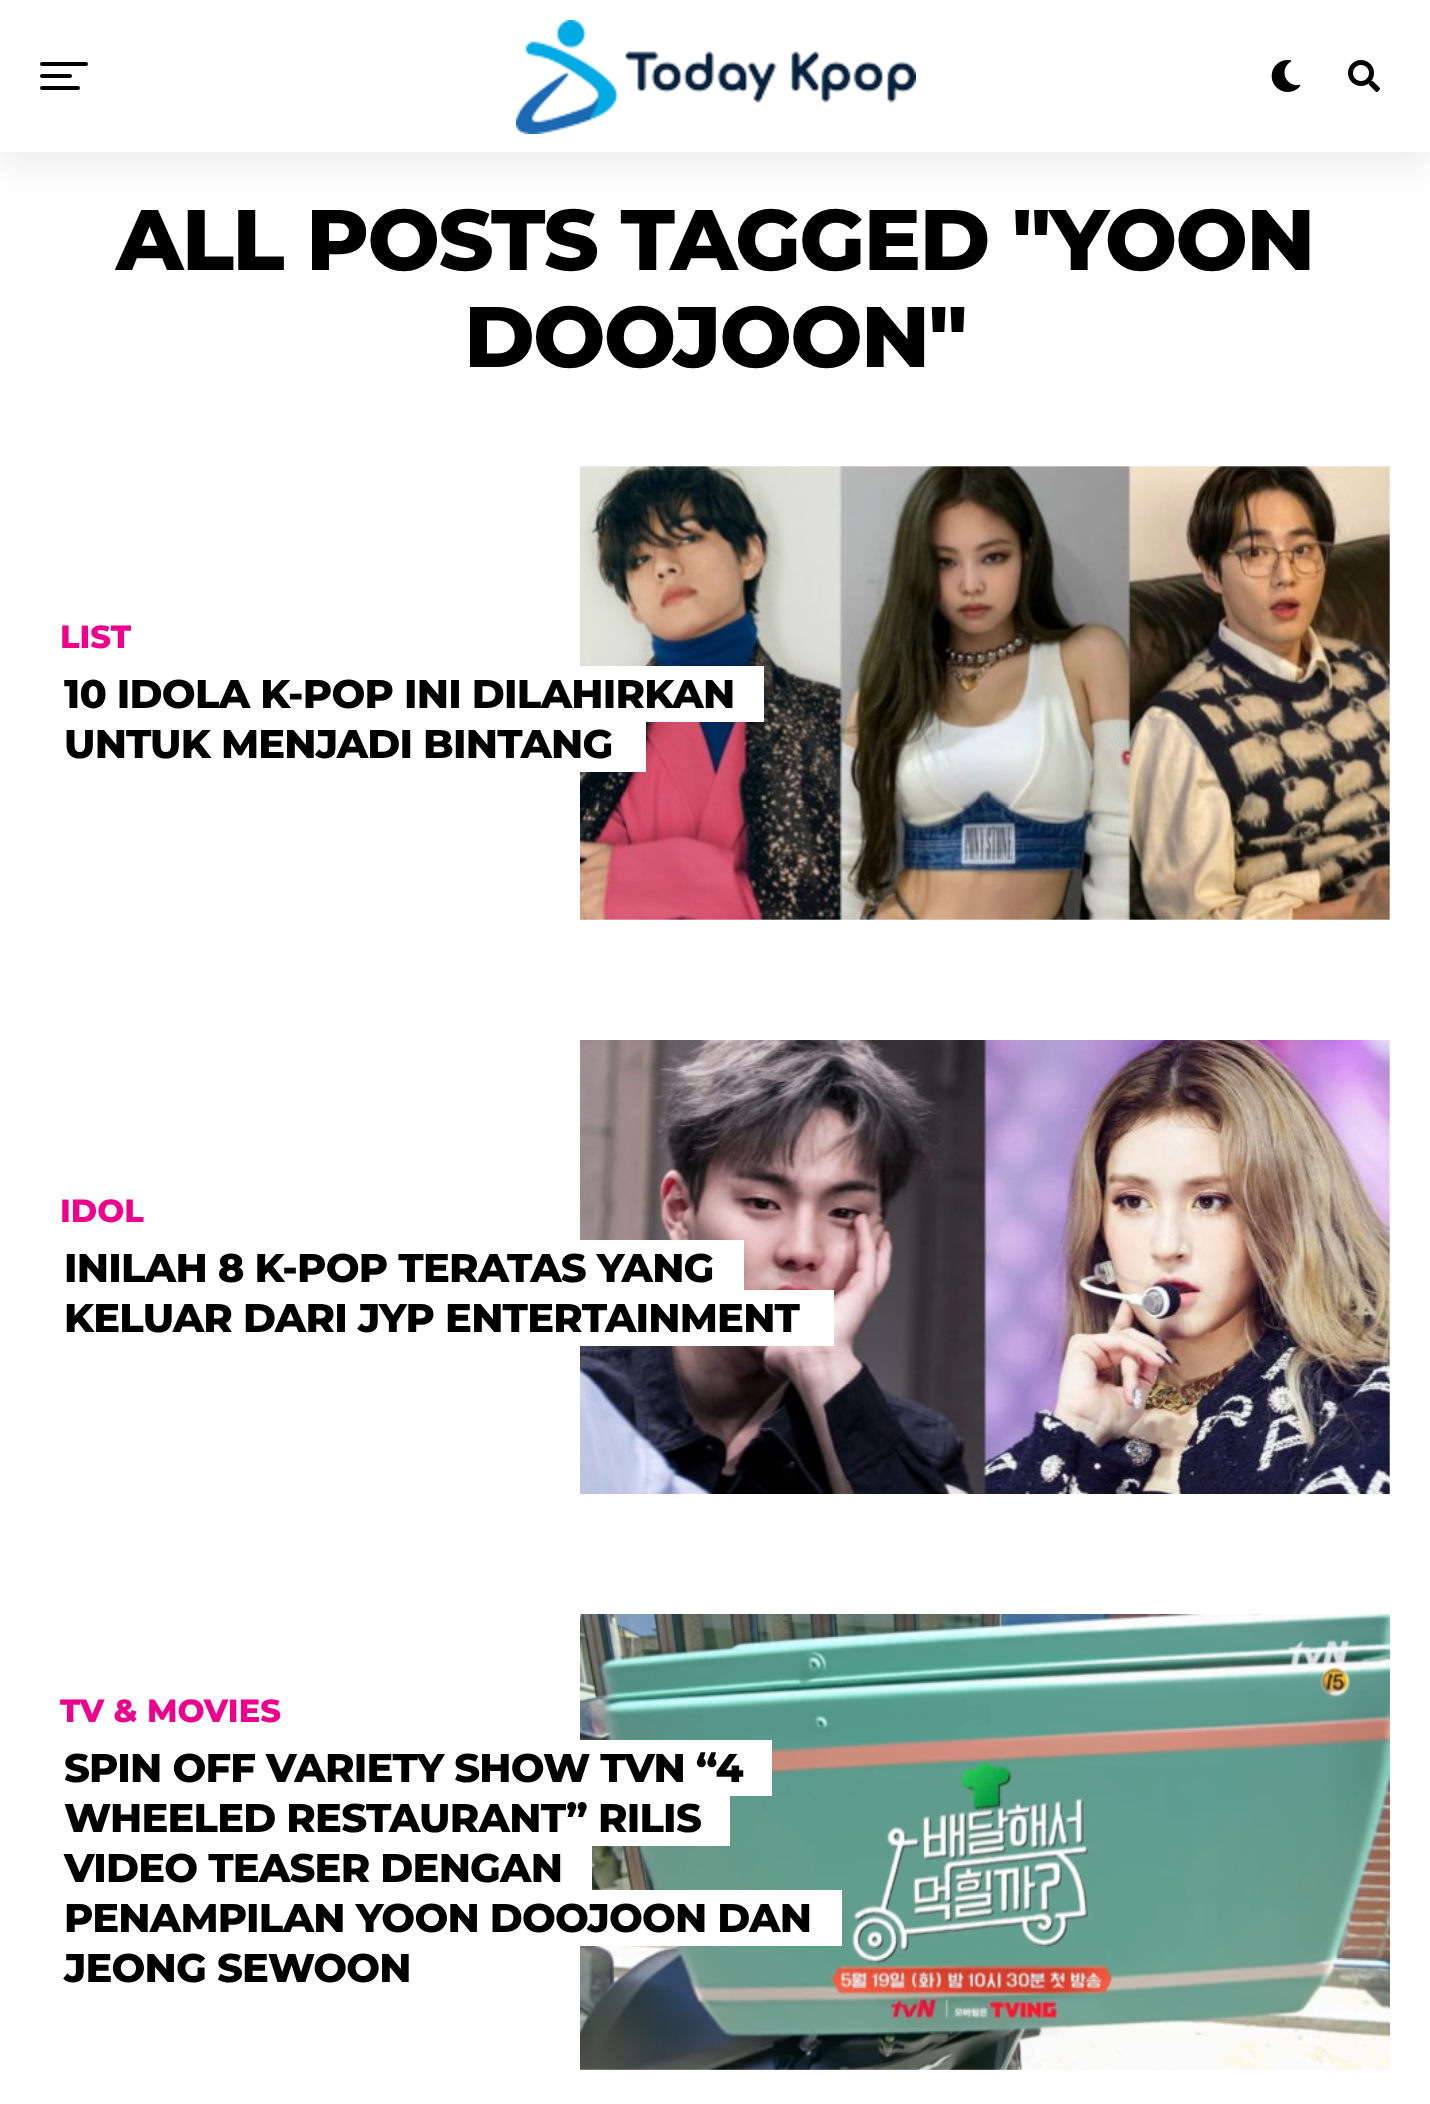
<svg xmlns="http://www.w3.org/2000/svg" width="1430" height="2104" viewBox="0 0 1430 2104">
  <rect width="100%" height="100%" fill="rgb(255,255,255)"/>
  <rect x="0" y="16" width="1430" height="152" fill="rgba(21,21,30,0.08)" filter="blur(16px)"/>
  <rect x="0" y="0" width="1430" height="152" fill="rgb(255,255,255)"/>
  <rect x="40" y="62" width="48" height="4" rx="2" fill="rgb(0,0,0)"/>
  <rect x="40" y="74" width="32" height="4" rx="2" fill="rgb(0,0,0)"/>
  <rect x="40" y="86" width="40" height="4" rx="2" fill="rgb(0,0,0)"/>
  <image x="516" y="20" width="400" height="114" href="pic1.png"/>
  <image x="1271" y="60" width="30" height="32" href="pic2.png"/>
  <image x="1348" y="60" width="32" height="32" href="pic3.png"/>
  <g font-family="Montserrat" font-size="85.75" font-weight="800" letter-spacing="-1.75" fill="rgb(0,0,0)">
    <text x="116" y="270">ALL POSTS TAGGED "YOON</text>
    <text x="464" y="367">DOOJOON"</text>
  </g>
  <text x="60" y="648" font-family="Montserrat" font-size="32" font-weight="800" fill="rgb(236,0,140)">LIST</text>
  <image x="580" y="466" width="810" height="454" href="pic4.png"/>
  <rect x="580" y="666" width="184" height="56" fill="rgb(255,255,255)"/>
  <text x="64" y="708" font-family="Montserrat" font-size="40" font-weight="800" letter-spacing="-0.8" fill="rgb(0,0,0)">10 IDOLA K-POP INI DILAHIRKAN</text>
  <rect x="580" y="722" width="66" height="50" fill="rgb(255,255,255)"/>
  <text x="64" y="758" font-family="Montserrat" font-size="40" font-weight="800" letter-spacing="-0.8" fill="rgb(0,0,0)">UNTUK MENJADI BINTANG</text>
  <text x="60" y="1222" font-family="Montserrat" font-size="32" font-weight="800" fill="rgb(236,0,140)">IDOL</text>
  <image x="580" y="1040" width="810" height="454" href="pic5.png"/>
  <rect x="580" y="1240" width="134" height="56" fill="rgb(255,255,255)"/>
  <text x="64" y="1282" font-family="Montserrat" font-size="40" font-weight="800" letter-spacing="-0.8" fill="rgb(0,0,0)">INILAH 8 K-POP TERATAS YANG</text>
  <rect x="714" y="1240" width="30" height="50" fill="rgb(255,255,255)"/>
  <rect x="580" y="1290" width="254" height="56" fill="rgb(255,255,255)"/>
  <text x="64" y="1332" font-family="Montserrat" font-size="40" font-weight="800" letter-spacing="-0.8" fill="rgb(0,0,0)">KELUAR DARI JYP ENTERTAINMENT</text>
  <text x="60" y="1722" font-family="Montserrat" font-size="32" font-weight="800" fill="rgb(236,0,140)">TV &amp; MOVIES</text>
  <image x="580" y="1614" width="810" height="456" href="pic6.png"/>
  <rect x="580" y="1740" width="192" height="56" fill="rgb(255,255,255)"/>
  <text x="64" y="1782" font-family="Montserrat" font-size="40" font-weight="800" letter-spacing="-0.8" fill="rgb(0,0,0)">SPIN OFF VARIETY SHOW TVN “4</text>
  <rect x="580" y="1796" width="150" height="50" fill="rgb(255,255,255)"/>
  <g font-family="Montserrat" font-size="40" font-weight="800" letter-spacing="-0.8" fill="rgb(0,0,0)">
    <text>
      <tspan x="64" y="1832">WHEELED RESTAURANT” RILIS</tspan>
      <tspan x="64" y="1882">VIDEO TEASER DENGAN</tspan>
    </text>
  </g>
  <rect x="580" y="1846" width="12" height="44" fill="rgb(255,255,255)"/>
  <rect x="580" y="1890" width="262" height="56" fill="rgb(255,255,255)"/>
  <g font-family="Montserrat" font-size="40" font-weight="800" letter-spacing="-0.8" fill="rgb(0,0,0)">
    <text>
      <tspan x="64" y="1932">PENAMPILAN YOON DOOJOON DAN</tspan>
      <tspan x="64" y="1982">JEONG SEWOON</tspan>
    </text>
  </g>
</svg>
